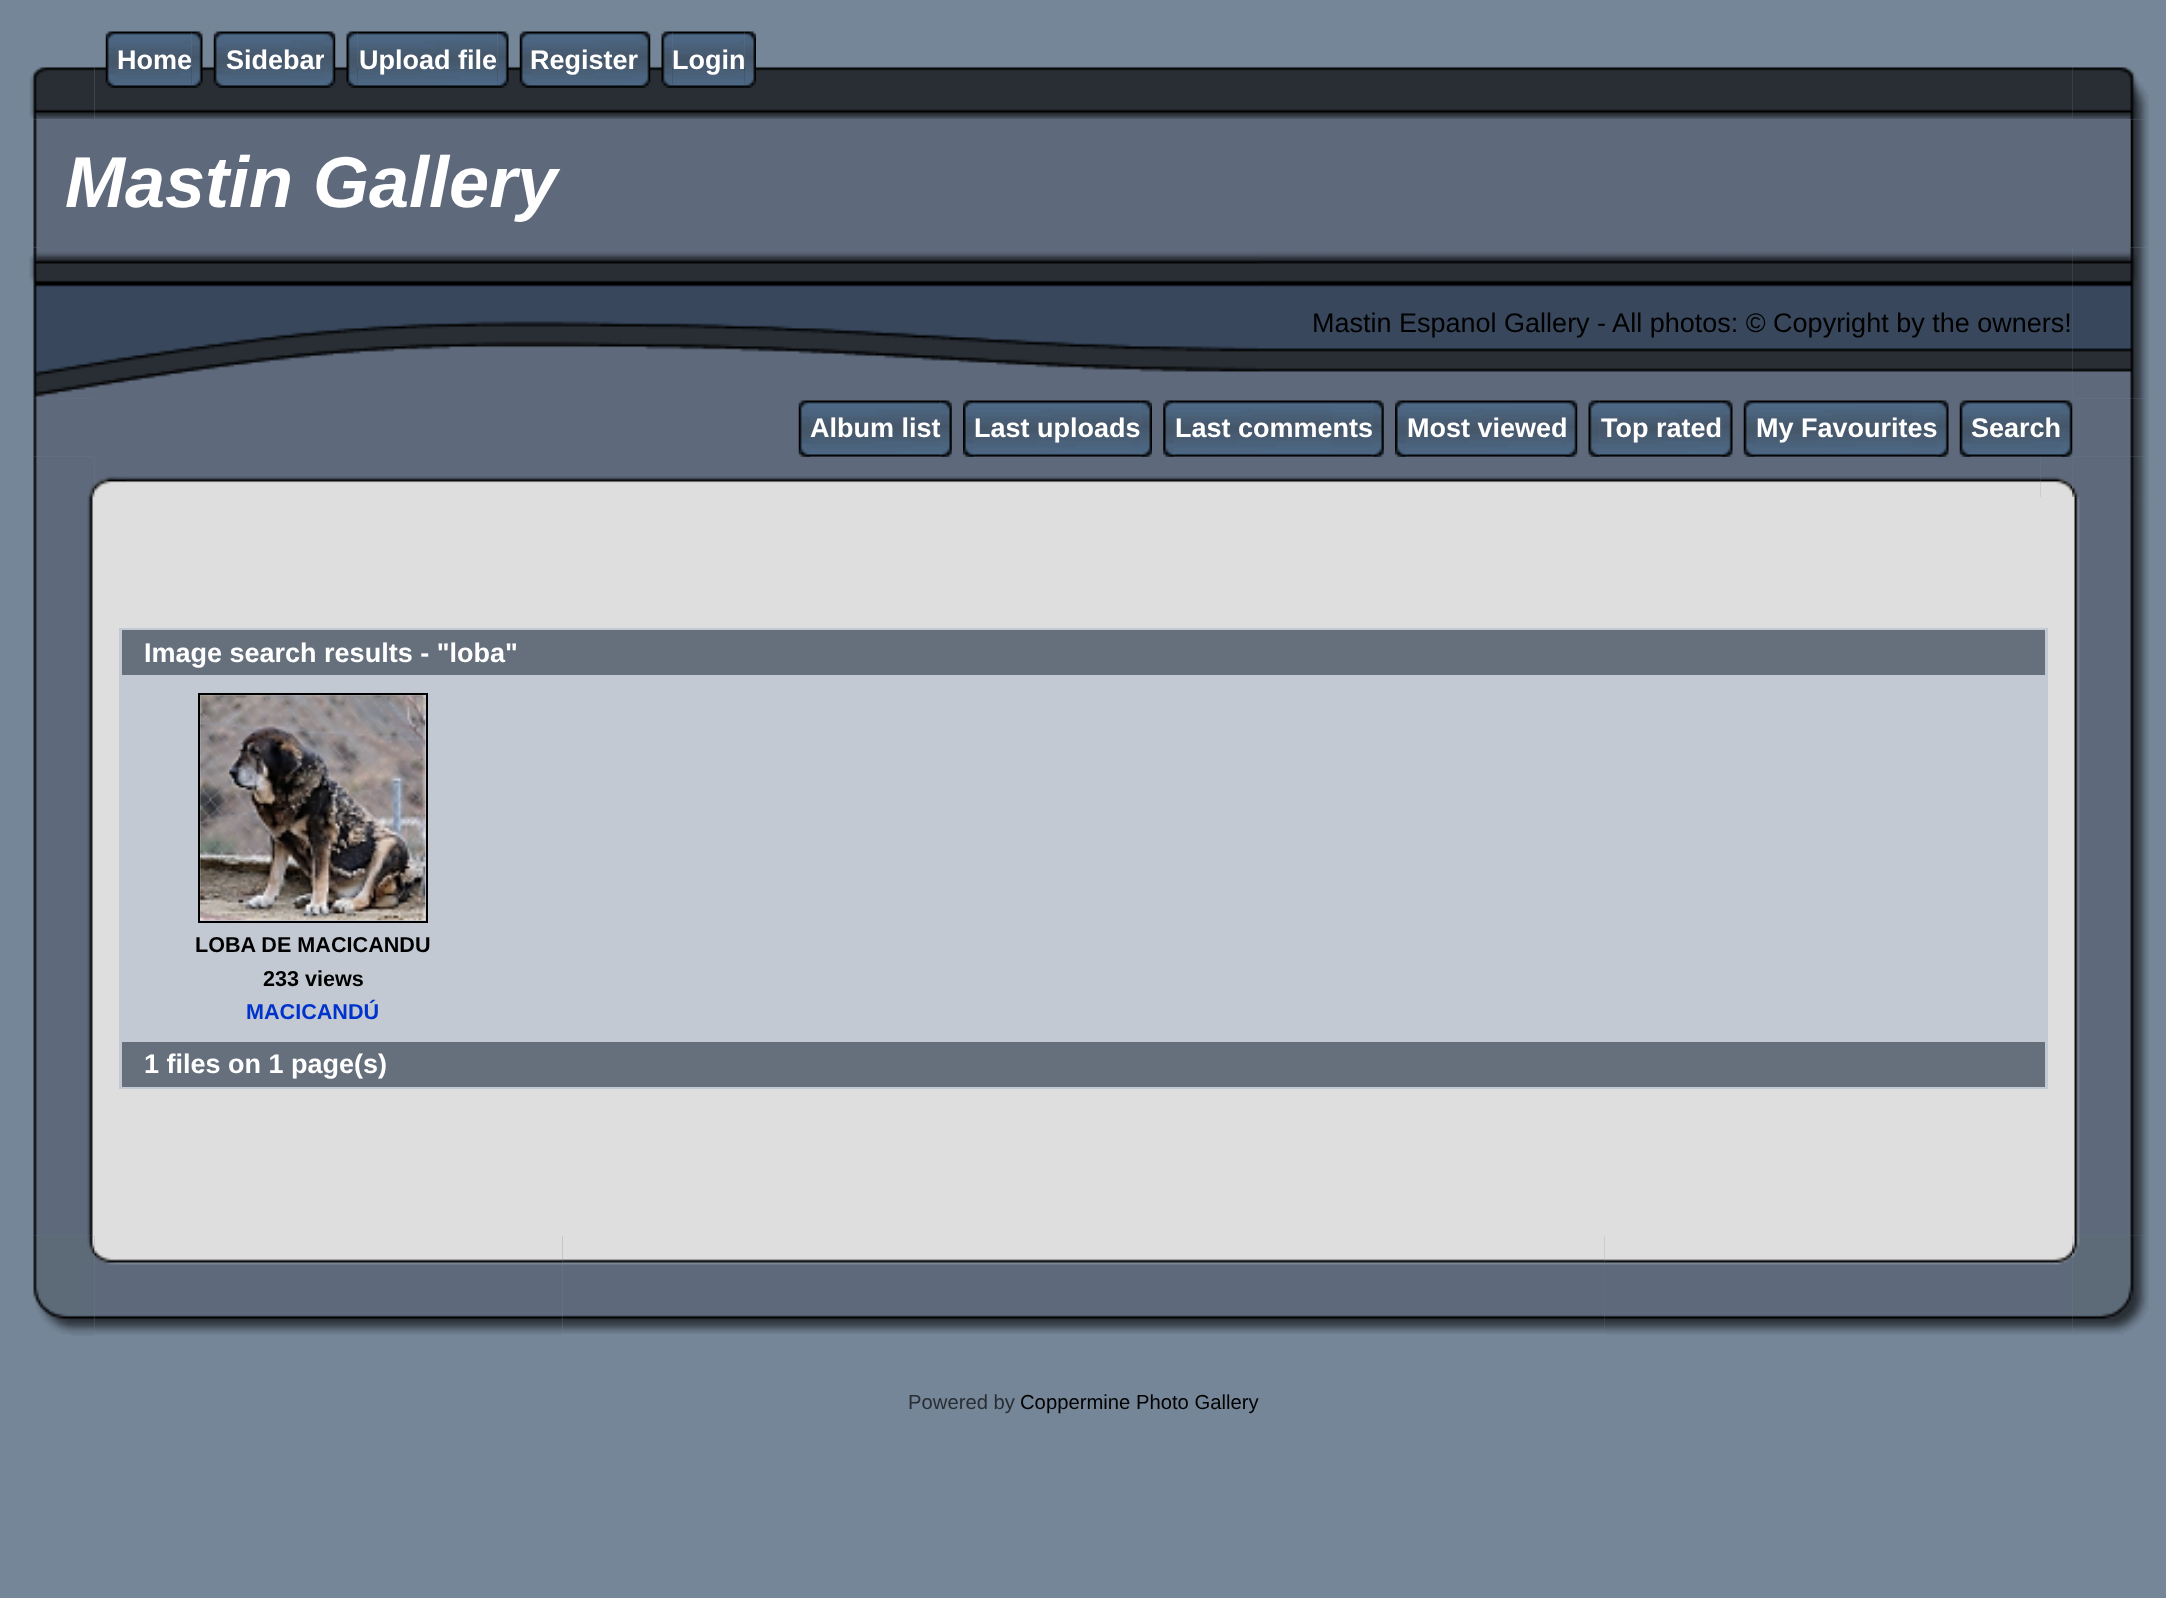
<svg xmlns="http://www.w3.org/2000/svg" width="2166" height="1598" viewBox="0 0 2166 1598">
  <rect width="100%" height="100%" fill="rgb(117,134,152)"/>
  <image x="29" y="67" width="66" height="53" href="pic15.png"/>
  <image x="94" y="66" width="1979" height="53" href="pic1.png"/>
  <image x="105" y="31" width="12" height="57" href="pic2.png"/>
  <image x="117" y="31" width="75" height="57" href="pic3.png"/>
  <text x="117" y="69" font-family="Liberation Sans" font-size="27" font-weight="bold" fill="rgb(255,255,255)">Home</text>
  <image x="191" y="31" width="12" height="57" href="pic4.png"/>
  <image x="213" y="31" width="12" height="57" href="pic5.png"/>
  <image x="225" y="31" width="99" height="57" href="pic6.png"/>
  <text x="226" y="69" font-family="Liberation Sans" font-size="27" font-weight="bold" fill="rgb(255,255,255)">Sidebar</text>
  <image x="324" y="31" width="12" height="57" href="pic7.png"/>
  <image x="357" y="31" width="141" height="57" href="pic9.png"/>
  <image x="346" y="31" width="12" height="57" href="pic8.png"/>
  <text x="359" y="69" font-family="Liberation Sans" font-size="27" font-weight="bold" fill="rgb(255,255,255)">Upload file</text>
  <image x="497" y="31" width="12" height="57" href="pic10.png"/>
  <image x="519" y="31" width="12" height="57" href="pic5.png"/>
  <image x="531" y="31" width="108" height="57" href="pic11.png"/>
  <text x="530" y="69" font-family="Liberation Sans" font-size="27" font-weight="bold" fill="rgb(255,255,255)">Register</text>
  <image x="639" y="31" width="12" height="57" href="pic7.png"/>
  <image x="672" y="31" width="73" height="57" href="pic13.png"/>
  <image x="661" y="31" width="12" height="57" href="pic12.png"/>
  <text x="672" y="69" font-family="Liberation Sans" font-size="27" font-weight="bold" fill="rgb(255,255,255)">Login</text>
  <image x="744" y="31" width="12" height="57" href="pic14.png"/>
  <image x="2072" y="67" width="77" height="53" href="pic16.png"/>
  <image x="33" y="119" width="7" height="129" href="pic17.png"/>
  <rect x="40" y="119" width="2091" height="129" fill="rgb(94,105,123)"/>
  <text x="65" y="207" font-family="Liberation Sans" font-size="72" font-weight="bold" font-style="italic" fill="rgb(255,255,255)">Mastin Gallery</text>
  <image x="2130" y="119" width="19" height="129" href="pic18.png"/>
  <image x="29" y="247" width="1231" height="152" href="pic19.png"/>
  <image x="1260" y="248" width="813" height="150" href="pic20.png"/>
  <text x="1312" y="332" font-family="Liberation Sans" font-size="27" fill="rgb(0,0,0)">Mastin Espanol Gallery - All photos: © Copyright by the owners!</text>
  <image x="2072" y="247" width="77" height="152" href="pic21.png"/>
  <image x="33" y="398" width="61" height="59" href="pic22.png"/>
  <rect x="94" y="398" width="1979" height="59" fill="rgb(94,105,123)"/>
  <image x="810" y="400" width="131" height="57" href="pic24.png"/>
  <image x="974" y="400" width="167" height="57" href="pic27.png"/>
  <image x="1174" y="400" width="199" height="57" href="pic30.png"/>
  <image x="1406" y="400" width="160" height="57" href="pic32.png"/>
  <image x="1599" y="400" width="123" height="57" href="pic35.png"/>
  <image x="1755" y="400" width="183" height="57" href="pic38.png"/>
  <image x="1971" y="400" width="90" height="57" href="pic40.png"/>
  <image x="126" y="456" width="1915" height="41" href="pic45.png"/>
  <image x="798" y="400" width="12" height="57" href="pic23.png"/>
  <text x="810" y="437" font-family="Liberation Sans" font-size="27" font-weight="bold" fill="rgb(255,255,255)">Album list</text>
  <image x="940" y="400" width="12" height="57" href="pic25.png"/>
  <image x="963" y="400" width="12" height="57" href="pic26.png"/>
  <text x="974" y="437" font-family="Liberation Sans" font-size="27" font-weight="bold" fill="rgb(255,255,255)">Last uploads</text>
  <image x="1140" y="400" width="12" height="57" href="pic28.png"/>
  <image x="1163" y="400" width="12" height="57" href="pic29.png"/>
  <text x="1175" y="437" font-family="Liberation Sans" font-size="27" font-weight="bold" fill="rgb(255,255,255)">Last comments</text>
  <image x="1372" y="400" width="12" height="57" href="pic31.png"/>
  <image x="1395" y="400" width="12" height="57" href="pic26.png"/>
  <text x="1407" y="437" font-family="Liberation Sans" font-size="27" font-weight="bold" fill="rgb(255,255,255)">Most viewed</text>
  <image x="1566" y="400" width="12" height="57" href="pic33.png"/>
  <image x="1588" y="400" width="12" height="57" href="pic34.png"/>
  <text x="1601" y="437" font-family="Liberation Sans" font-size="27" font-weight="bold" fill="rgb(255,255,255)">Top rated</text>
  <image x="1721" y="400" width="12" height="57" href="pic36.png"/>
  <image x="1743" y="400" width="12" height="57" href="pic37.png"/>
  <text x="1756" y="437" font-family="Liberation Sans" font-size="27" font-weight="bold" fill="rgb(255,255,255)">My Favourites</text>
  <image x="1937" y="400" width="12" height="57" href="pic39.png"/>
  <image x="1959" y="400" width="12" height="57" href="pic37.png"/>
  <text x="1971" y="437" font-family="Liberation Sans" font-size="27" font-weight="bold" fill="rgb(255,255,255)">Search</text>
  <image x="2040" y="456" width="33" height="41" href="pic46.png"/>
  <image x="2073" y="398" width="76" height="59" href="pic42.png"/>
  <image x="2072" y="456" width="77" height="42" href="pic47.png"/>
  <image x="2061" y="400" width="12" height="57" href="pic41.png"/>
  <image x="33" y="456" width="62" height="42" href="pic43.png"/>
  <image x="94" y="457" width="32" height="40" href="pic44.png"/>
  <image x="33" y="497" width="61" height="739" href="pic48.png"/>
  <rect x="94" y="497" width="1979" height="739" fill="rgb(222,222,222)"/>
  <image x="33" y="1235" width="62" height="101" href="pic53.png"/>
  <image x="33" y="497" width="61" height="739" href="pic49.png"/>
  <rect x="119" y="628" width="1929" height="461" fill="rgb(194,201,211)"/>
  <rect x="122" y="630" width="1923" height="45" fill="rgb(102,112,124)"/>
  <text x="144" y="662" font-family="Liberation Sans" font-size="27" font-weight="bold" fill="rgb(255,255,255)">Image search results - "loba"</text>
  <rect x="199" y="694" width="228" height="228" fill="none" stroke="rgb(0,0,0)" stroke-width="2"/>
  <image x="200" y="695" width="226" height="226" href="pic50.png"/>
  <g font-family="Liberation Sans" font-size="21.6" font-weight="bold" fill="rgb(0,0,0)">
    <text x="195" y="952">LOBA DE MACICANDU</text>
    <text x="263" y="986">233 views</text>
  </g>
  <text x="246" y="1019" font-family="Liberation Sans" font-size="21.6" font-weight="bold" fill="rgb(0,51,204)">MACICANDÚ</text>
  <rect x="122" y="1042" width="1923" height="45" fill="rgb(102,112,124)"/>
  <text x="144" y="1073" font-family="Liberation Sans" font-size="27" font-weight="bold" fill="rgb(255,255,255)">1 files on 1 page(s)</text>
  <image x="2073" y="497" width="76" height="739" href="pic51.png"/>
  <image x="94" y="1236" width="469" height="99" href="pic54.png"/>
  <image x="562" y="1236" width="1043" height="98" href="pic55.png"/>
  <image x="1604" y="1236" width="469" height="99" href="pic56.png"/>
  <image x="2072" y="1235" width="77" height="100" href="pic57.png"/>
  <image x="2073" y="497" width="72" height="739" href="pic52.png"/>
  <text x="908" y="1409" font-family="Liberation Sans" font-size="20.25" fill="rgb(41,46,52)">Powered by</text>
  <text x="1020" y="1409" font-family="Liberation Sans" font-size="20.25" fill="rgb(0,0,0)">Coppermine Photo Gallery</text>
</svg>
